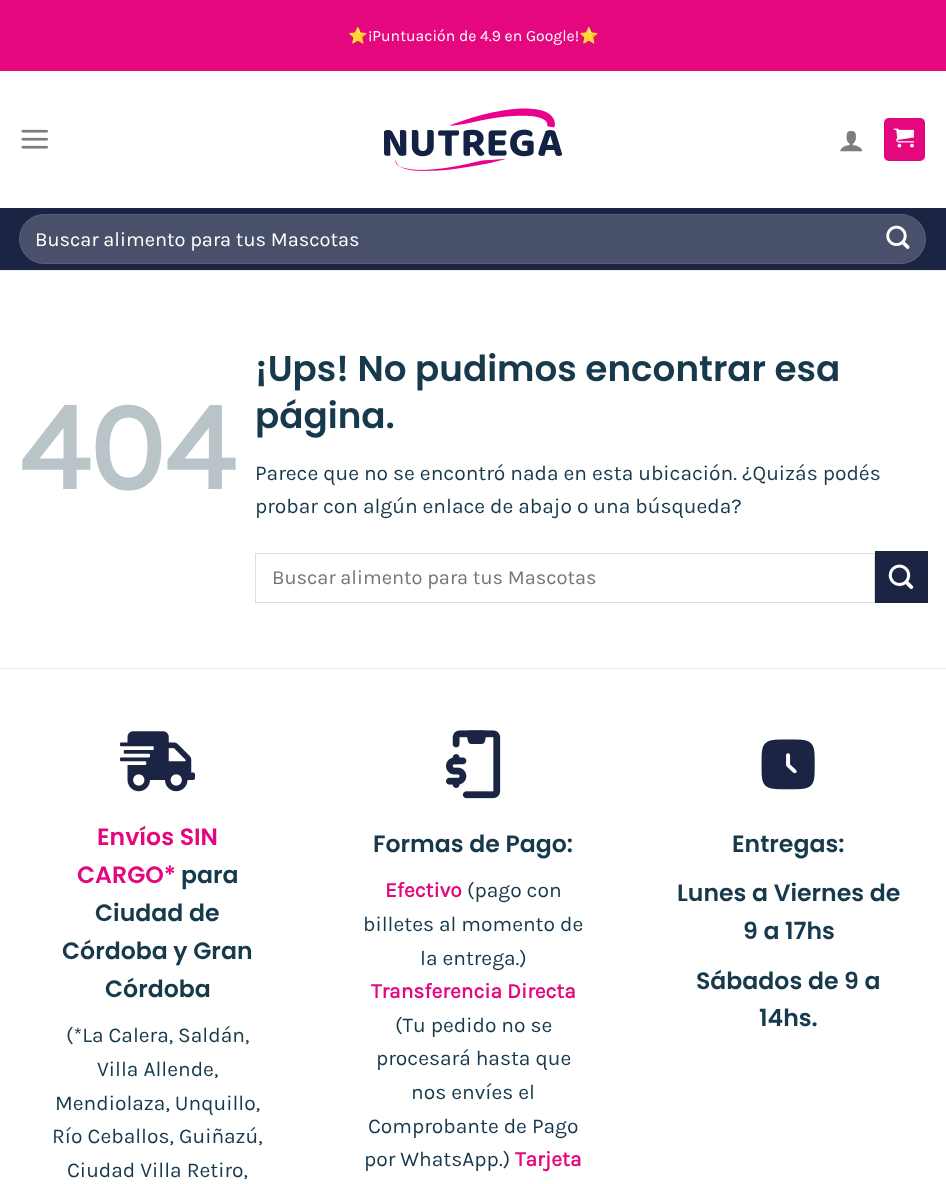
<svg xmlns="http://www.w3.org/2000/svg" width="946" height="1184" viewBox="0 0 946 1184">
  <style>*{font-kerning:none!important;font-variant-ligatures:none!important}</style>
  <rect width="100%" height="100%" fill="rgb(255,255,255)"/>
  <rect x="0" y="270" width="946" height="1" fill="rgb(237,237,237)"/>
  <rect x="0" y="0" width="946" height="71" fill="rgb(228,7,125)"/>
  <text x="348" y="41" font-family="Noto Color Emoji" font-size="15.75" fill="rgb(255,255,255)">⭐</text>
  <text x="368" y="41" font-family="Karla" font-size="15.75" fill="rgb(255,255,255)">¡Puntuación de 4.9 en Google!</text>
  <text x="579" y="41" font-family="Noto Color Emoji" font-size="15.75" fill="rgb(255,255,255)">⭐</text>
  <image x="21" y="129" width="27" height="20" href="pic1.png"/>
  <image x="384" y="108" width="179" height="63" href="pic2.png"/>
  <image x="840" y="130" width="23" height="22" href="pic3.png"/>
  <rect x="884" y="118" width="41" height="43" rx="5" fill="rgb(228,7,125)"/>
  <rect x="884.5" y="118.5" width="40" height="42" fill="none" stroke="rgba(0,0,0,0.05)"/>
  <image x="893" y="128" width="21" height="20" href="pic4.png"/>
  <rect x="0" y="208" width="946" height="62" fill="rgb(28,36,67)"/>
  <rect x="19" y="214" width="907" height="50" rx="25" fill="rgb(73,80,105)"/>
  <rect x="19.5" y="214.5" width="906" height="49" rx="24.5" fill="none" stroke="rgba(255,255,255,0.09)"/>
  <text x="35" y="246" font-family="Karla" font-size="20" fill="rgb(255,255,255)">Buscar alimento para tus Mascotas</text>
  <image x="886" y="225" width="24" height="24" href="pic5.png"/>
  <text x="19" y="489" font-family="Karla" font-size="126" font-weight="bold" fill="rgb(185,196,201)">404</text>
  <g font-family="Poppins" font-size="35.75" font-weight="600" fill="rgb(23,57,76)">
    <text>
      <tspan x="255" y="381">¡Ups! No pudimos encontrar esa</tspan>
      <tspan x="255" y="428">página.</tspan>
    </text>
  </g>
  <g font-family="Karla" font-size="21" fill="rgb(23,57,76)">
    <text>
      <tspan x="255" y="480">Parece que no se encontró nada en esta ubicación. ¿Quizás podés</tspan>
      <tspan x="255" y="513">probar con algún enlace de abajo o una búsqueda?</tspan>
    </text>
  </g>
  <rect x="255.5" y="553.5" width="619" height="49" fill="none" stroke="rgb(221,221,221)"/>
  <text x="272" y="584" font-family="Karla" font-size="20" fill="rgb(117,117,117)">Buscar alimento para tus Mascotas</text>
  <rect x="875.5" y="551.5" width="52" height="51" fill="rgb(28,36,67)" stroke="rgb(27,34,64)"/>
  <image x="888" y="564" width="26" height="25" href="pic6.png"/>
  <rect x="0" y="668" width="946" height="1" fill="rgb(237,237,237)"/>
  <image x="120" y="731" width="75" height="61" href="pic7.png"/>
  <g font-family="Poppins" font-size="23.6" font-weight="600" fill="rgb(228,7,125)">
    <text x="97" y="845">Envíos SIN</text>
    <text x="77" y="883">CARGO*</text>
  </g>
  <g font-family="Poppins" font-size="23.6" font-weight="600" fill="rgb(23,57,76)">
    <text x="181" y="883">para</text>
    <text x="95" y="921">Ciudad de</text>
    <text x="62" y="959">Córdoba y Gran</text>
    <text x="105" y="997">Córdoba</text>
  </g>
  <g font-family="Karla" font-size="21" fill="rgb(23,57,76)">
    <text x="66" y="1042">(*La Calera, Saldán,</text>
    <text x="97" y="1076">Villa Allende,</text>
    <text x="55" y="1110">Mendiolaza, Unquillo,</text>
    <text x="52" y="1143">Río Ceballos, Guiñazú,</text>
    <text x="67" y="1177">Ciudad Villa Retiro,</text>
  </g>
  <image x="446" y="730" width="55" height="69" href="pic8.png"/>
  <text x="373" y="852" font-family="Poppins" font-size="23.6" font-weight="600" fill="rgb(23,57,76)">Formas de Pago:</text>
  <text x="385" y="897" font-family="Karla" font-size="21" font-weight="bold" fill="rgb(228,7,125)">Efectivo</text>
  <g font-family="Karla" font-size="21" fill="rgb(23,57,76)">
    <text x="467" y="897">(pago con</text>
    <text x="363" y="931">billetes al momento de</text>
    <text x="420" y="965">la entrega.)</text>
  </g>
  <text x="371" y="998" font-family="Karla" font-size="21" font-weight="bold" fill="rgb(228,7,125)">Transferencia Directa</text>
  <g font-family="Karla" font-size="21" fill="rgb(23,57,76)">
    <text x="395" y="1032">(Tu pedido no se</text>
    <text x="376" y="1065">procesará hasta que</text>
    <text x="411" y="1099">nos envíes el</text>
    <text x="368" y="1133">Comprobante de Pago</text>
    <text x="364" y="1166">por WhatsApp.)</text>
  </g>
  <text x="515" y="1166" font-family="Karla" font-size="21" font-weight="bold" fill="rgb(228,7,125)">Tarjeta</text>
  <image x="761" y="739" width="54" height="51" href="pic9.png"/>
  <g font-family="Poppins" font-size="23.6" font-weight="600" fill="rgb(23,57,76)">
    <text x="732" y="852">Entregas:</text>
    <text x="677" y="901">Lunes a Viernes de</text>
    <text x="743" y="939">9 a 17hs</text>
    <text x="696" y="989">Sábados de 9 a</text>
    <text x="759" y="1026">14hs.</text>
  </g>
</svg>
